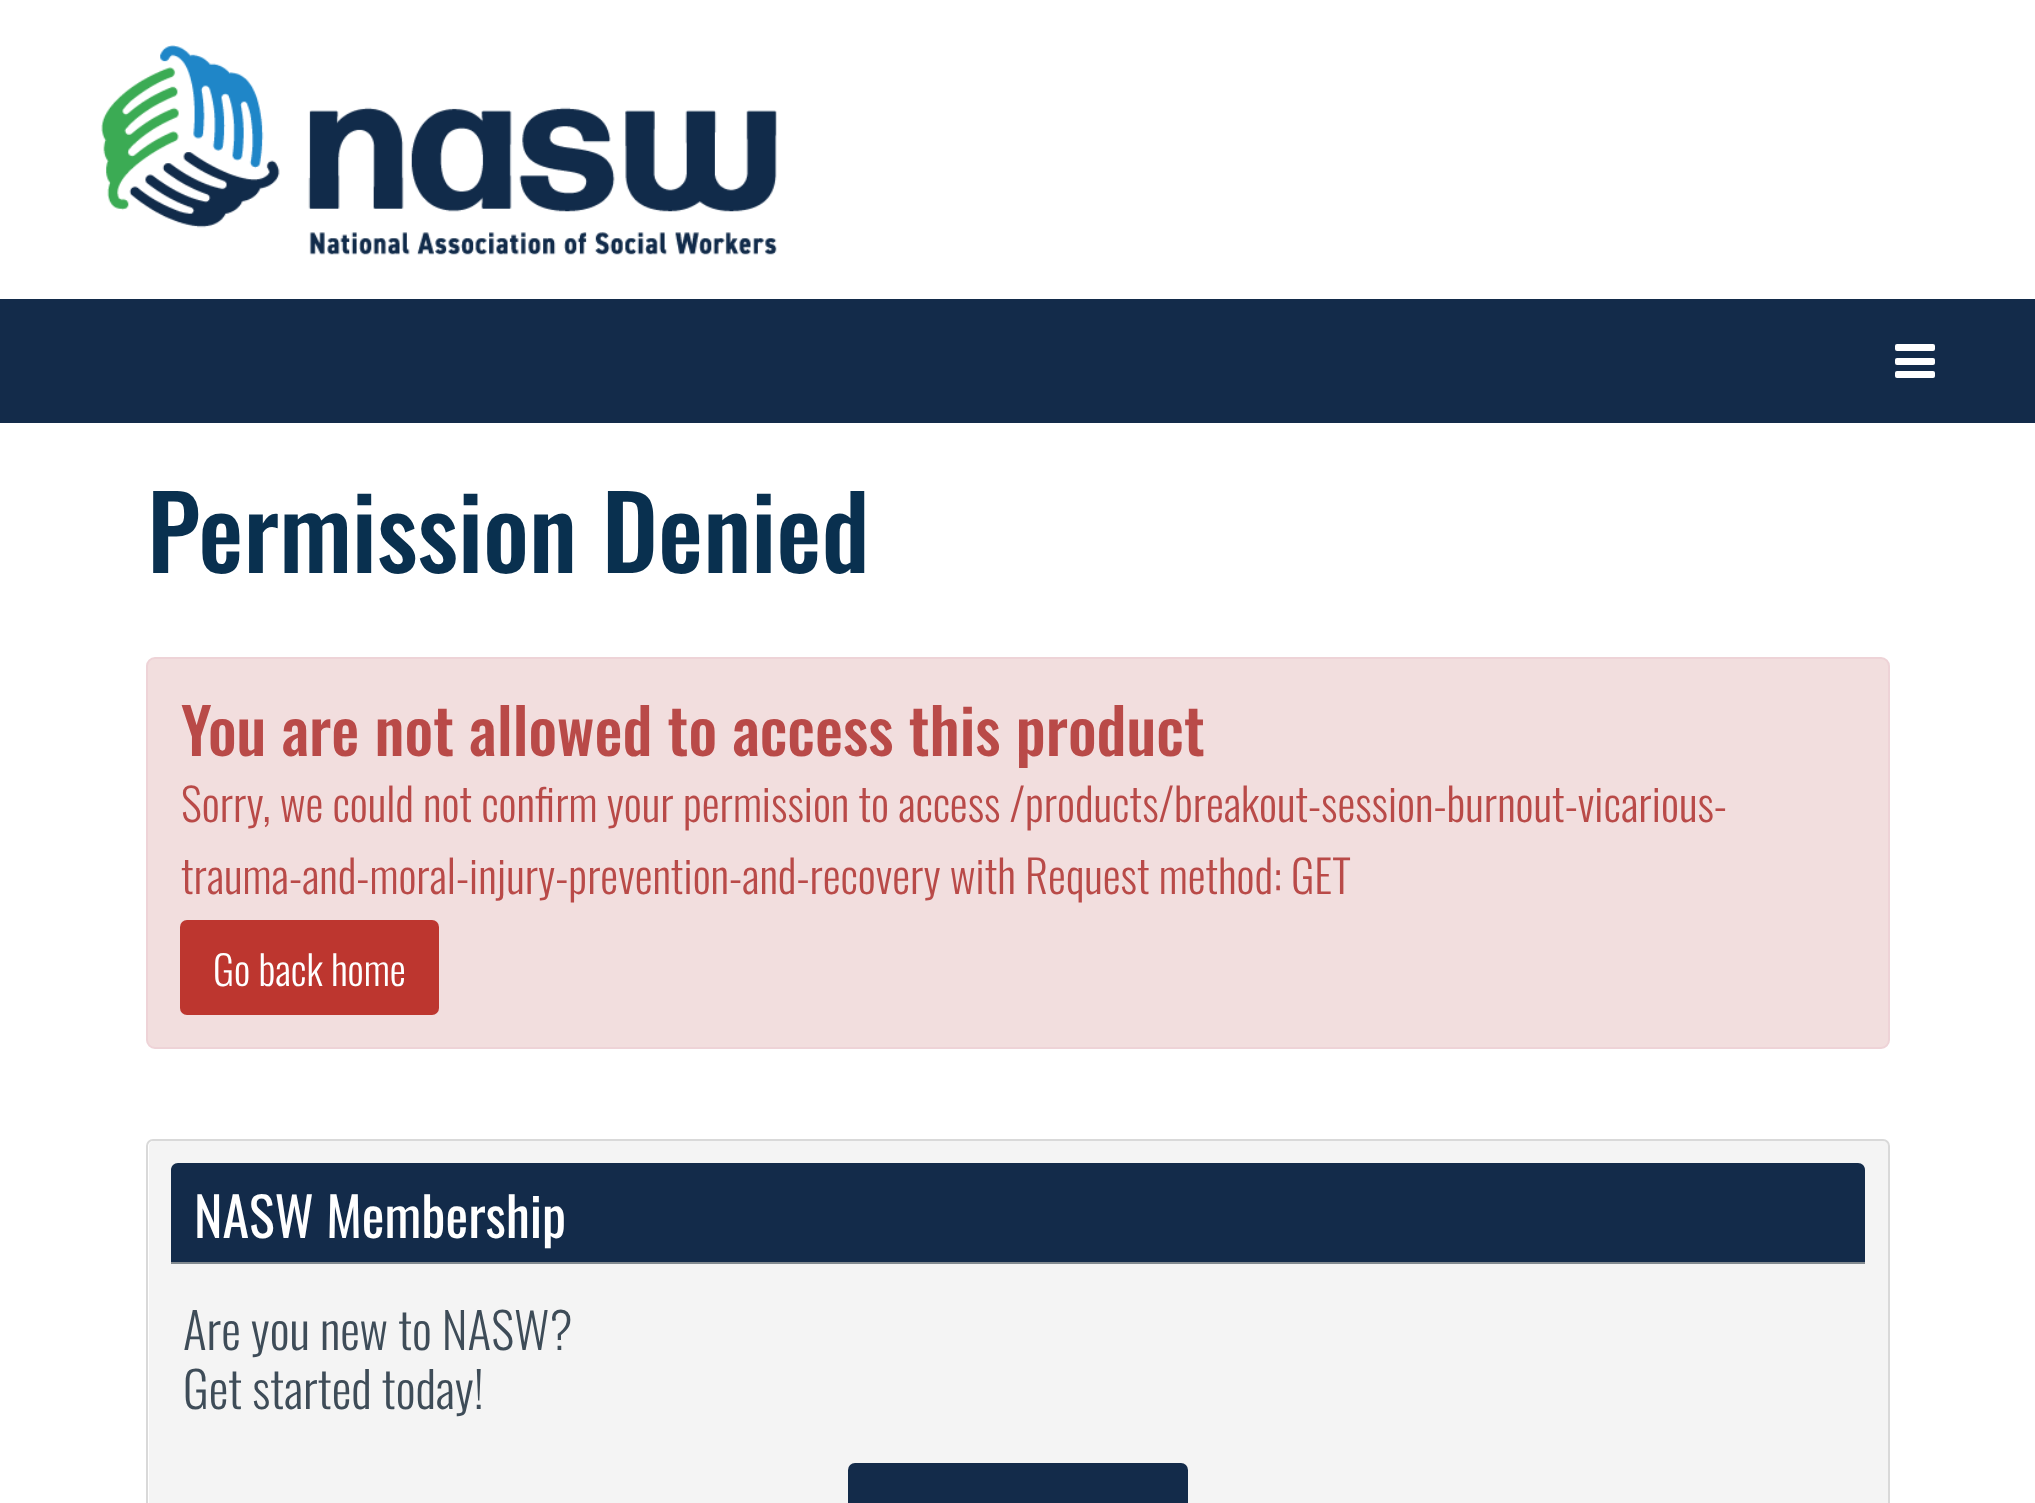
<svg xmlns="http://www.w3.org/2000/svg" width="2035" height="1503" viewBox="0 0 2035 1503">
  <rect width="100%" height="100%" fill="rgb(255,255,255)"/>
  <image x="101" y="45" width="676" height="210" href="pic1.png"/>
  <rect x="0" y="299" width="2035" height="124" fill="rgb(19,43,74)"/>
  <rect x="1895" y="344" width="40" height="7" rx="2" fill="rgb(255,255,255)"/>
  <rect x="1895" y="358" width="40" height="7" rx="2" fill="rgb(255,255,255)"/>
  <rect x="1895" y="371" width="40" height="7" rx="2" fill="rgb(255,255,255)"/>
  <text x="147" y="573" font-family="Oswald" font-size="101.25" font-weight="500" fill="rgb(9,48,79)">Permission Denied</text>
  <rect x="147" y="658" width="1742" height="390" rx="8" fill="rgb(242,222,222)" stroke="rgb(238,211,215)" stroke-width="2"/>
  <text x="181" y="756" font-family="Oswald" font-size="63" font-weight="500" fill="rgb(185,74,72)">You are not allowed to access this product</text>
  <g font-family="Oswald" font-size="45" font-weight="300" fill="rgb(185,74,72)">
    <text>
      <tspan x="181" y="822">Sorry, we could not confirm your permission to access /products/breakout-session-burnout-vicarious-</tspan>
      <tspan x="181" y="894">trauma-and-moral-injury-prevention-and-recovery with Request method: GET</tspan>
    </text>
  </g>
  <rect x="180" y="920" width="259" height="95" rx="7" fill="rgb(189,54,47)"/>
  <text x="213" y="986" font-family="Oswald" font-size="40.5" font-weight="300" fill="rgb(255,255,255)">Go back home</text>
  <rect x="149" y="1141" width="1739" height="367" rx="5" fill="rgb(244,244,244)"/>
  <rect x="147" y="1140" width="1742" height="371" rx="6" fill="none" stroke="rgb(217,217,217)" stroke-width="2"/>
  <path d="M178 1163H1858C1862 1163 1865 1166 1865 1170V1262H171V1170C171 1166 174 1163 178 1163Z" fill="rgb(19,43,74)"/>
  <rect x="171" y="1262" width="1694" height="2" fill="rgb(130,138,144)"/>
  <text x="194" y="1238" font-family="Oswald" font-size="54" fill="rgb(255,255,255)">NASW Membership</text>
  <g font-family="Oswald" font-size="49.5" font-weight="300" fill="rgb(62,76,88)">
    <text>
      <tspan x="183" y="1350">Are you new to NASW?</tspan>
      <tspan x="183" y="1409">Get started today!</tspan>
    </text>
  </g>
  <rect x="848" y="1463" width="340" height="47" rx="7" fill="rgb(19,43,74)"/>
</svg>
